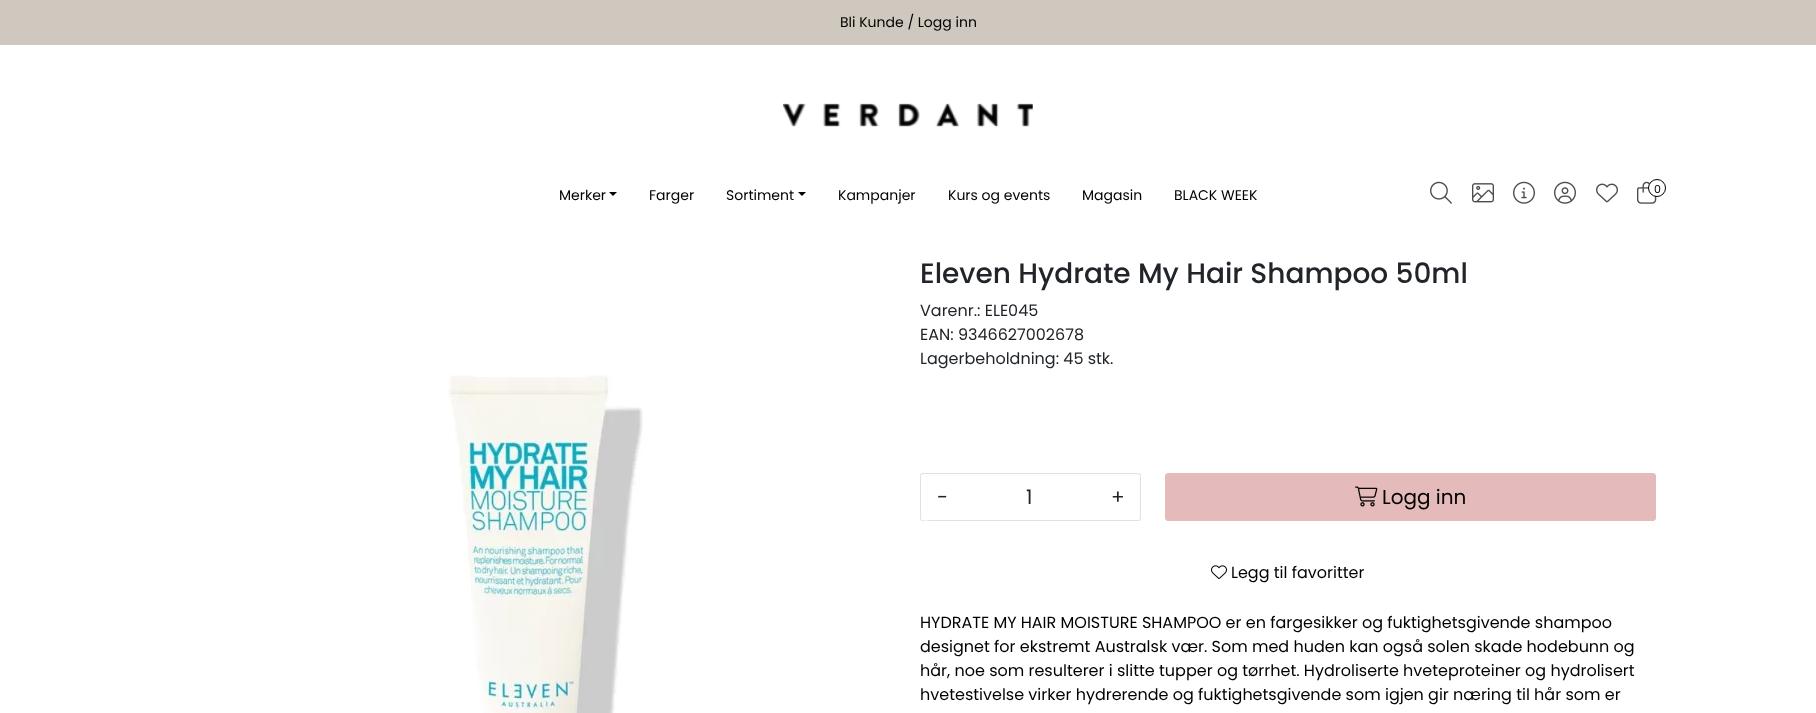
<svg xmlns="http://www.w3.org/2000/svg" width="1816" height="713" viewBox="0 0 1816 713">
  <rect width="100%" height="100%" fill="rgb(255,255,255)"/>
  <rect x="0" y="0" width="1816" height="45" fill="rgb(207,200,190)"/>
  <text x="840" y="27" font-family="Poppins" font-size="14" fill="rgb(0,0,0)">Bli Kunde / Logg inn</text>
  <image x="783" y="103" width="250" height="24" href="pic1.png"/>
  <text x="559" y="200" font-family="Poppins" font-size="14" fill="rgb(0,0,0)">Merker</text>
  <path d="M609 192H617L613 196Z" fill="rgb(0,0,0)"/>
  <g font-family="Poppins" font-size="14" fill="rgb(0,0,0)">
    <text x="649" y="200">Farger</text>
    <text x="726" y="200">Sortiment</text>
  </g>
  <path d="M798 192H806L802 196Z" fill="rgb(0,0,0)"/>
  <g font-family="Poppins" font-size="14" fill="rgb(0,0,0)">
    <text x="838" y="200">Kampanjer</text>
    <text x="948" y="200">Kurs og events</text>
    <text x="1082" y="200">Magasin</text>
    <text x="1174" y="200">BLACK WEEK</text>
  </g>
  <image x="1430" y="181" width="22" height="23" href="pic2.png"/>
  <image x="1472" y="183" width="22" height="20" href="pic3.png"/>
  <image x="1513" y="181" width="22" height="23" href="pic4.png"/>
  <image x="1554" y="181" width="22" height="23" href="pic5.png"/>
  <image x="1596" y="183" width="22" height="20" href="pic6.png"/>
  <image x="1637" y="181" width="20" height="23" href="pic7.png"/>
  <circle cx="1657" cy="188" r="8.5" fill="rgb(255,255,255)" stroke="rgb(0,0,0)"/>
  <text x="1654" y="193" font-family="Poppins" font-size="11" fill="rgb(0,0,0)">0</text>
  <image x="448" y="375" width="195" height="338" href="pic8.png"/>
  <text x="920" y="283" font-family="Poppins" font-size="28" font-weight="500" fill="rgb(33,37,41)">Eleven Hydrate My Hair Shampoo 50ml</text>
  <g font-family="Poppins" font-size="16" fill="rgb(33,37,41)">
    <text>
      <tspan x="920" y="316">Varenr.: ELE045</tspan>
      <tspan x="920" y="340">EAN: 9346627002678</tspan>
      <tspan x="920" y="364">Lagerbeholdning: 45 stk.</tspan>
    </text>
  </g>
  <rect x="963" y="473" width="133" height="1" fill="rgb(222,226,230)"/>
  <rect x="963" y="520" width="133" height="1" fill="rgb(222,226,230)"/>
  <path d="M923 473H964V521H923C921.5 521 920 519.5 920 518V476C920 474.5 921.5 473 923 473Z" fill="rgb(255,255,255)"/>
  <path d="M923 473H964V521H923C921 521 920 520 920 518V476C920 474 921 473 923 473ZM923 474H964V520H930C930 520 921 522 921 518V475Z" fill="rgb(222,226,230)" fill-rule="evenodd"/>
  <g font-family="Poppins" font-size="20" fill="rgb(33,37,41)">
    <text x="937" y="504">-</text>
    <text x="1026" y="504">1</text>
  </g>
  <path d="M1095 473H1138C1139.5 473 1141 474.5 1141 476V518C1141 519.5 1139.5 521 1138 521H1095Z" fill="rgb(255,255,255)"/>
  <path d="M1095 473H1138C1140 473 1141 474 1141 476V518C1141 520 1140 521 1138 521H1095ZM1095 474H1138C1139 474 1140 475 1140 476V518C1140 519 1139 520 1138 520H1095Z" fill="rgb(222,226,230)" fill-rule="evenodd"/>
  <text x="1111" y="504" font-family="Poppins" font-size="20" fill="rgb(33,37,41)">+</text>
  <rect x="1165.5" y="473.5" width="490" height="47" rx="2.5" fill="rgb(228,186,186)" stroke="rgb(228,186,186)"/>
  <image x="1355" y="486" width="23" height="21" href="pic9.png"/>
  <text x="1382" y="504" font-family="Poppins" font-size="20" fill="rgb(0,0,0)">Logg inn</text>
  <image x="1211" y="565" width="16" height="14" href="pic10.png"/>
  <g font-family="Poppins" font-size="16" fill="rgb(0,0,0)">
    <text x="1231" y="578">Legg til favoritter</text>
    <text>
      <tspan x="920" y="628">HYDRATE MY HAIR MOISTURE SHAMPOO er en fargesikker og fuktighetsgivende shampoo</tspan>
      <tspan x="920" y="652">designet for ekstremt Australsk vær. Som med huden kan også solen skade hodebunn og</tspan>
      <tspan x="920" y="676">hår, noe som resulterer i slitte tupper og tørrhet. Hydroliserte hveteproteiner og hydrolisert</tspan>
      <tspan x="920" y="700">hvetestivelse virker hydrerende og fuktighetsgivende som igjen gir næring til hår som er</tspan>
    </text>
  </g>
</svg>
